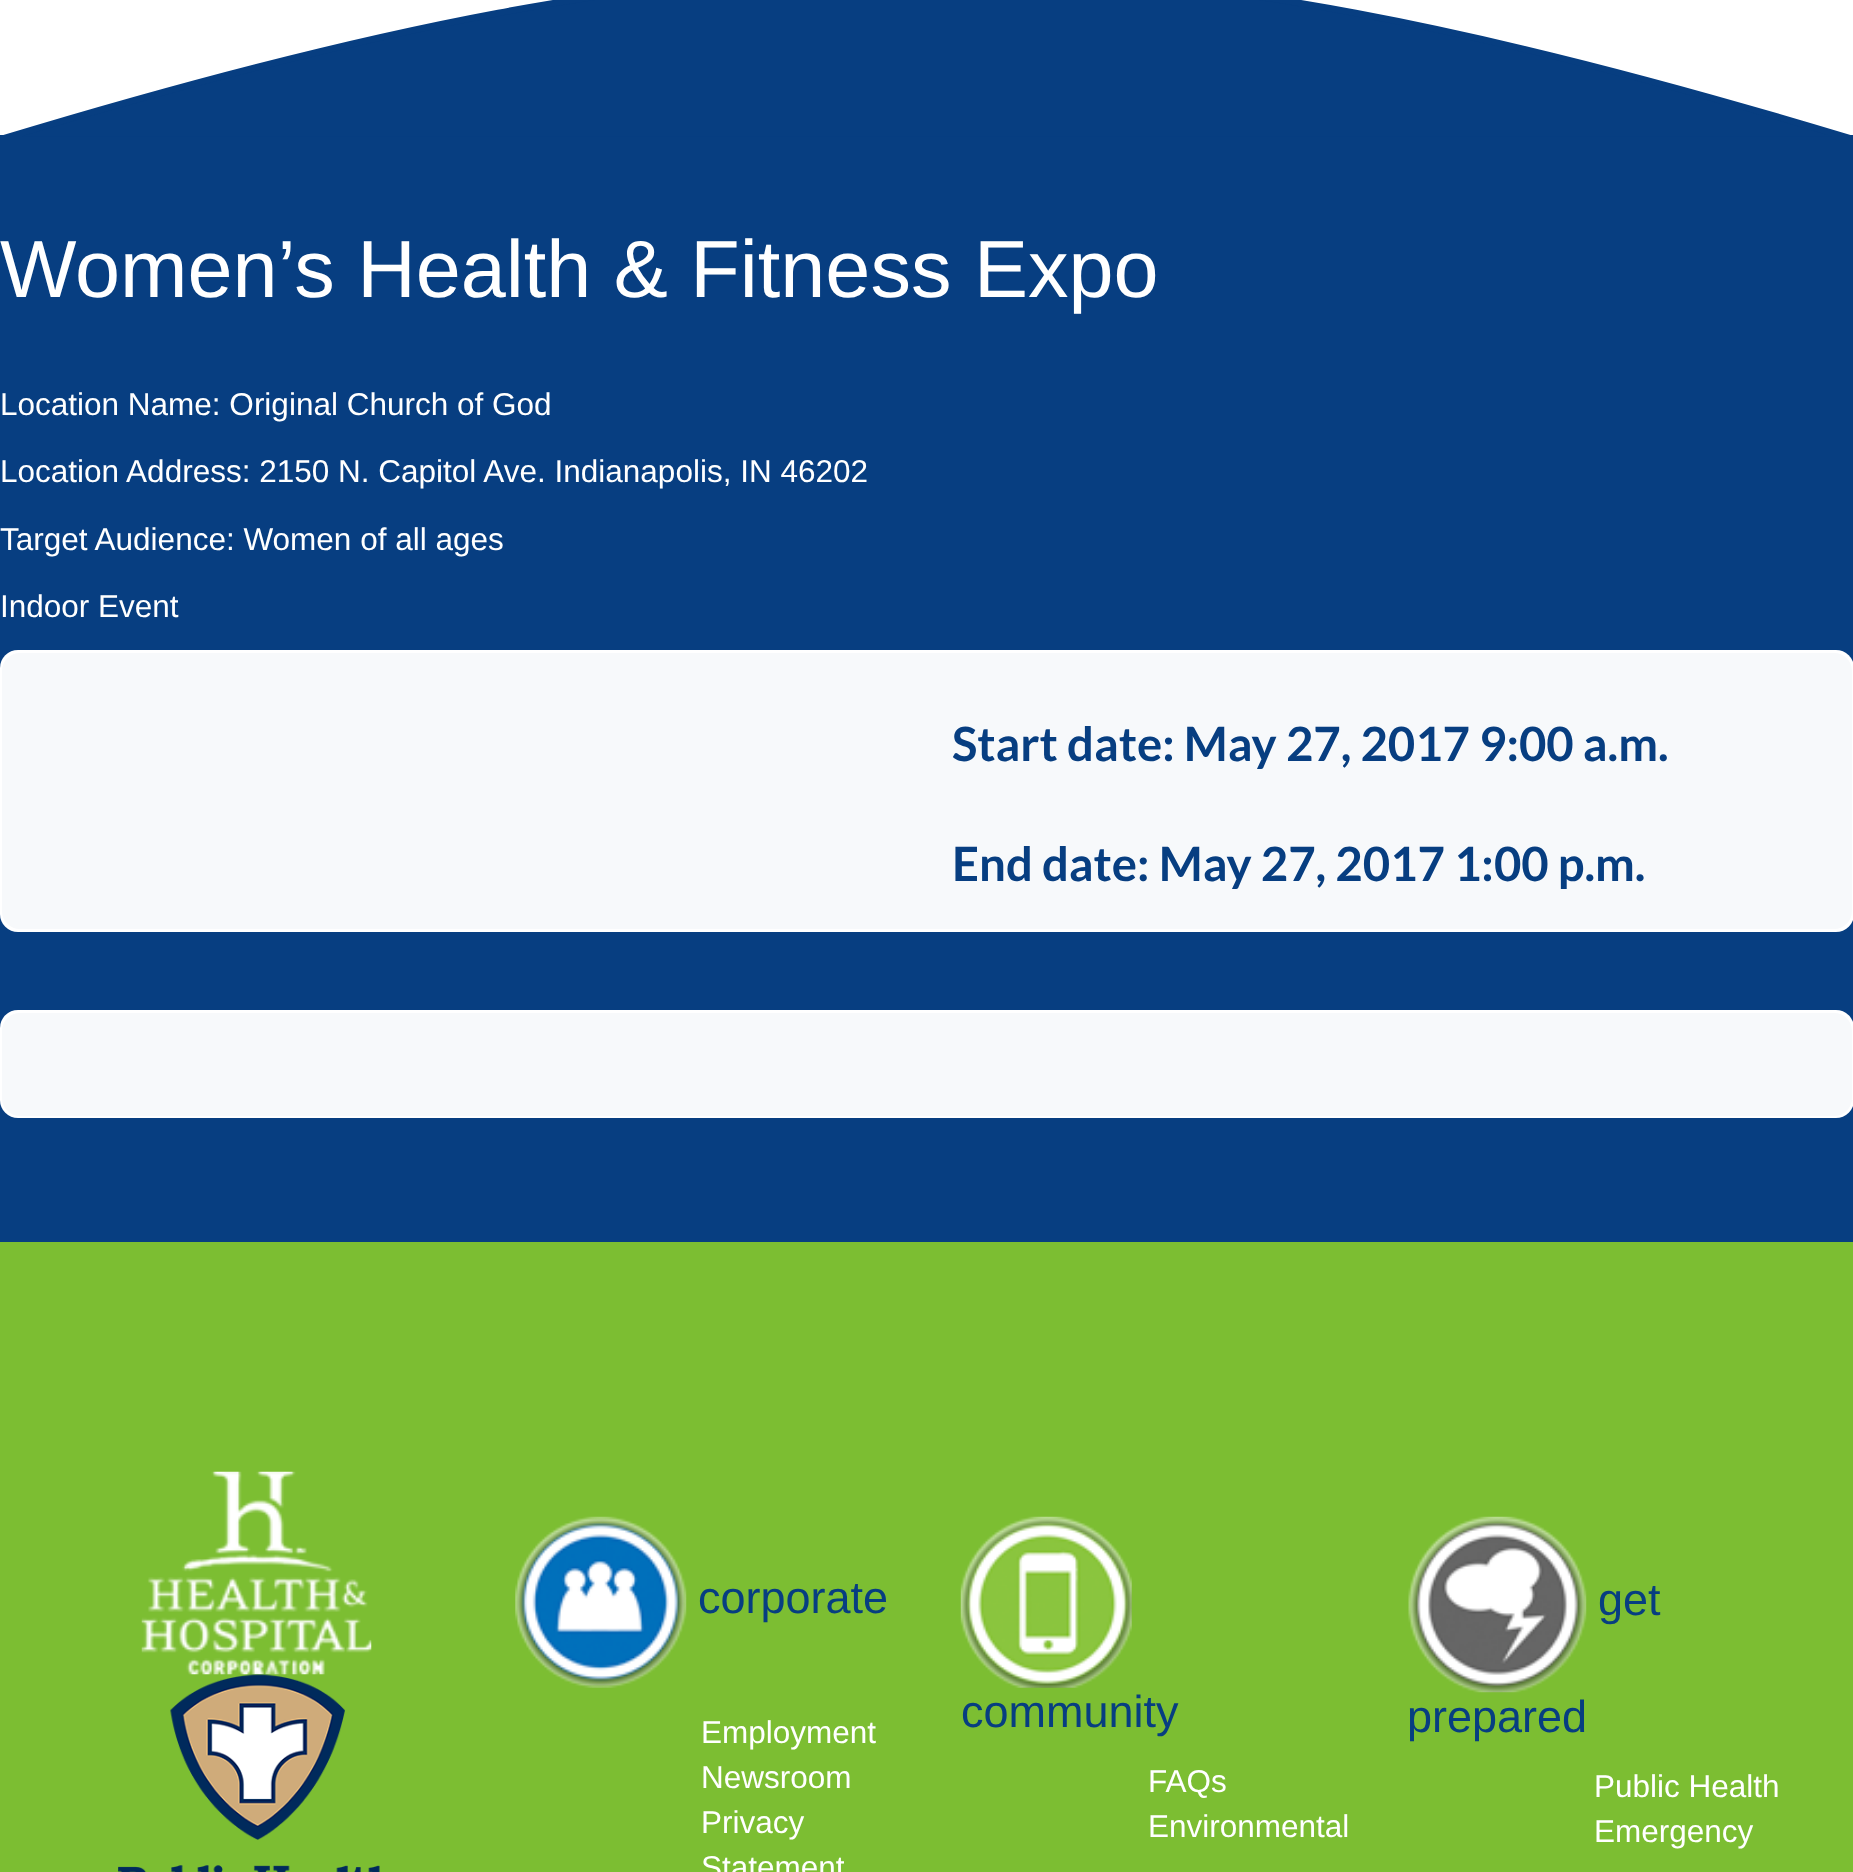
<svg xmlns="http://www.w3.org/2000/svg" width="1853" height="1872" viewBox="0 0 1853 1872">
  <defs>
    <clipPath id="clip1"><rect x="0" y="0" width="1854" height="140"/></clipPath>
  </defs>
  <rect width="100%" height="100%" fill="rgb(255,255,255)"/>
  <rect x="0" y="135" width="1853" height="1107" fill="rgb(7,62,129)"/>
  <path d="M0 140C742-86 1112-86 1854 140Z" fill="rgb(7,62,129)"/>
  <g clip-path="url(#clip1)">
    <path d="M0 139.5C741.5-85.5 1112.5-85.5 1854 139.5Z" fill="none" stroke="rgb(7,62,129)" stroke-width="6.5"/>
  </g>
  <text x="0" y="297" font-family="Liberation Sans" font-size="81" fill="rgb(255,255,255)">Women’s Health &amp; Fitness Expo</text>
  <g font-family="Liberation Sans" font-size="31.5" fill="rgb(255,255,255)">
    <text x="0" y="415">Location Name: Original Church of God</text>
    <text x="0" y="482">Location Address: 2150 N. Capitol Ave. Indianapolis, IN 46202</text>
    <text x="0" y="550">Target Audience: Women of all ages</text>
    <text x="0" y="617">Indoor Event</text>
  </g>
  <rect x="0" y="650" width="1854" height="282" rx="18" fill="rgb(255,255,255)"/>
  <rect x="2" y="653" width="1850" height="276" rx="18" fill="rgb(247,249,251)"/>
  <g font-family="Lato" font-size="47.25" font-weight="bold" fill="rgb(7,62,129)">
    <text x="952" y="761">Start date: May 27, 2017 9:00 a.m.</text>
    <text x="952" y="881">End date: May 27, 2017 1:00 p.m.</text>
  </g>
  <rect x="0" y="1010" width="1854" height="108" rx="18" fill="rgb(255,255,255)"/>
  <rect x="2" y="1013" width="1850" height="103" rx="18" fill="rgb(247,249,251)"/>
  <rect x="0" y="1242" width="1853" height="630" fill="rgb(124,190,50)"/>
  <image x="141" y="1471" width="231" height="204" href="pic1.png"/>
  <image x="118" y="1674" width="262" height="198" href="pic2.png"/>
  <image x="515" y="1516" width="172" height="172" href="pic3.png"/>
  <text x="698" y="1613" font-family="Liberation Sans" font-size="45" fill="rgb(7,62,129)">corporate</text>
  <g font-family="Liberation Sans" font-size="31.5" fill="rgb(255,255,255)">
    <text>
      <tspan x="701" y="1743">Employment</tspan>
      <tspan x="701" y="1788">Newsroom</tspan>
      <tspan x="701" y="1833">Privacy</tspan>
      <tspan x="701" y="1878">Statement</tspan>
    </text>
  </g>
  <image x="960" y="1516" width="172" height="172" href="pic4.png"/>
  <text x="961" y="1727" font-family="Liberation Sans" font-size="45" fill="rgb(7,62,129)">community</text>
  <g font-family="Liberation Sans" font-size="31.5" fill="rgb(255,255,255)">
    <text>
      <tspan x="1148" y="1792">FAQs</tspan>
      <tspan x="1148" y="1837">Environmental</tspan>
    </text>
  </g>
  <image x="1408" y="1516" width="179" height="177" href="pic5.png"/>
  <g font-family="Liberation Sans" font-size="45" fill="rgb(7,62,129)">
    <text x="1598" y="1615">get</text>
    <text x="1407" y="1732">prepared</text>
  </g>
  <g font-family="Liberation Sans" font-size="31.5" fill="rgb(255,255,255)">
    <text>
      <tspan x="1594" y="1797">Public Health</tspan>
      <tspan x="1594" y="1842">Emergency</tspan>
    </text>
  </g>
</svg>
